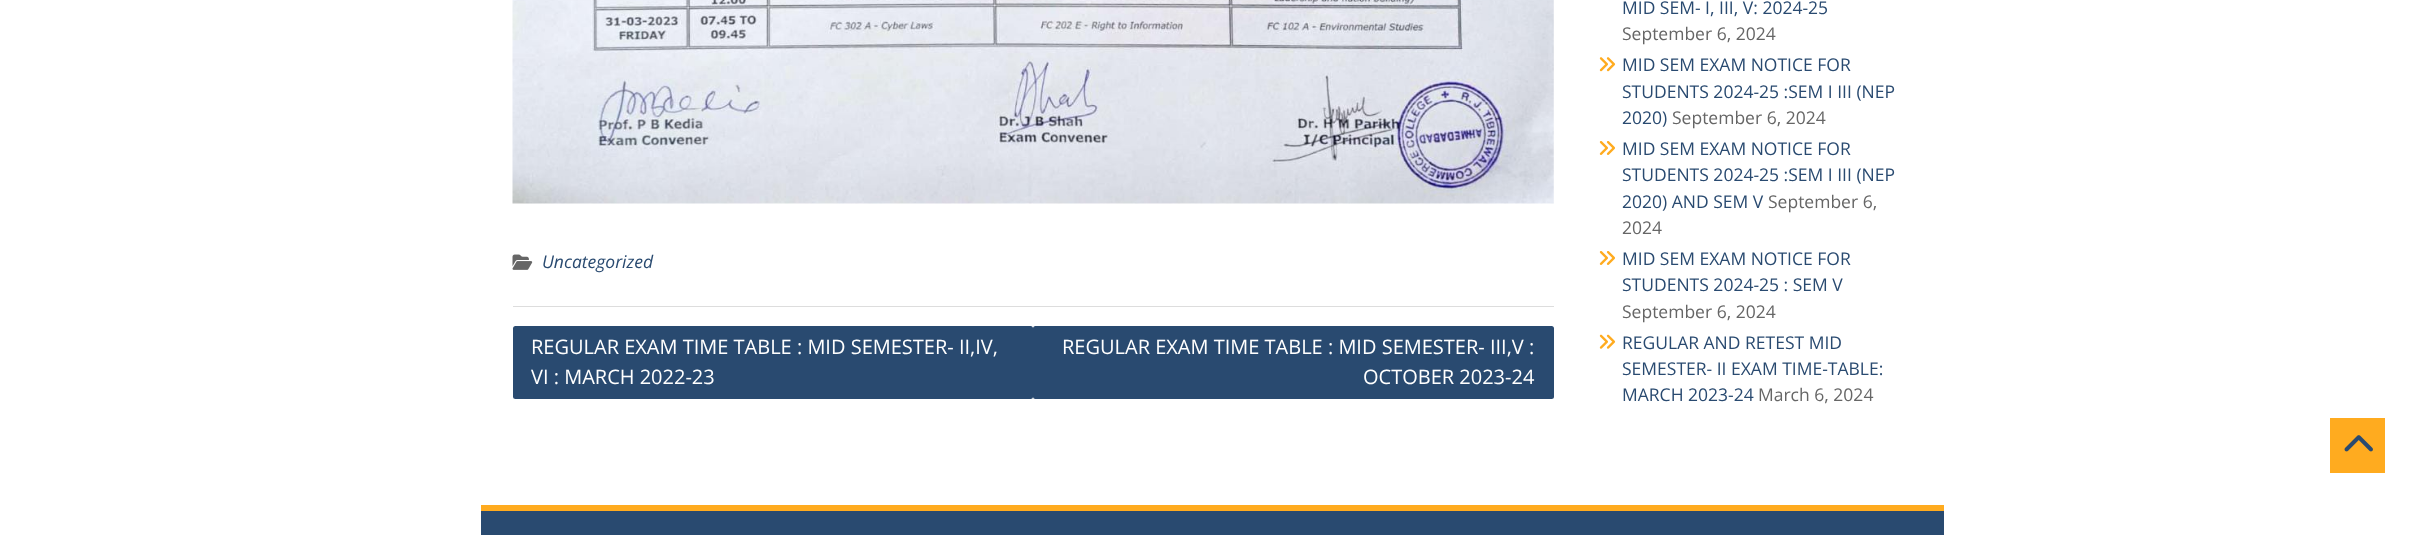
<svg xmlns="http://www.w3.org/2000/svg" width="2424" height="535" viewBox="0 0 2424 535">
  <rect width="100%" height="100%" fill="rgb(255,255,255)"/>
  <rect x="513" y="306" width="1041" height="1" fill="rgb(221,221,221)"/>
  <image x="512" y="0" width="1042" height="204" href="pic1.png"/>
  <image x="512" y="254" width="21" height="16" href="pic2.png"/>
  <text x="542" y="268" font-family="Open Sans" font-size="17.5" font-style="italic" fill="rgb(41,74,112)">Uncategorized</text>
  <rect x="513" y="326" width="520" height="73" rx="2.5" fill="rgb(41,74,112)"/>
  <g font-family="Open Sans" font-size="20" fill="rgb(255,255,255)">
    <text>
      <tspan x="531" y="354">REGULAR EXAM TIME TABLE : MID SEMESTER- II,IV,</tspan>
      <tspan x="531" y="384">VI : MARCH 2022-23</tspan>
    </text>
  </g>
  <rect x="1033" y="326" width="521" height="73" rx="2.5" fill="rgb(41,74,112)"/>
  <g font-family="Open Sans" font-size="20" fill="rgb(255,255,255)">
    <text x="1062" y="354">REGULAR EXAM TIME TABLE : MID SEMESTER- III,V :</text>
    <text x="1363" y="384">OCTOBER 2023-24</text>
  </g>
  <text x="1622" y="14" font-family="Open Sans" font-size="17.5" fill="rgb(41,74,112)">MID SEM- I, III, V: 2024-25</text>
  <text x="1622" y="40" font-family="Open Sans" font-size="17.5" fill="rgb(102,102,102)">September 6, 2024</text>
  <image x="1599" y="57" width="17" height="15" href="pic3.png"/>
  <g font-family="Open Sans" font-size="17.5" fill="rgb(41,74,112)">
    <text>
      <tspan x="1622" y="71">MID SEM EXAM NOTICE FOR</tspan>
      <tspan x="1622" y="98">STUDENTS 2024-25 :SEM I III (NEP</tspan>
      <tspan x="1622" y="124">2020)</tspan>
    </text>
  </g>
  <text x="1672" y="124" font-family="Open Sans" font-size="17.5" fill="rgb(102,102,102)">September 6, 2024</text>
  <image x="1599" y="141" width="16" height="14" href="pic4.png"/>
  <g font-family="Open Sans" font-size="17.5" fill="rgb(41,74,112)">
    <text>
      <tspan x="1622" y="155">MID SEM EXAM NOTICE FOR</tspan>
      <tspan x="1622" y="181">STUDENTS 2024-25 :SEM I III (NEP</tspan>
      <tspan x="1622" y="208">2020) AND SEM V</tspan>
    </text>
  </g>
  <g font-family="Open Sans" font-size="17.5" fill="rgb(102,102,102)">
    <text x="1768" y="208">September 6,</text>
    <text x="1622" y="234">2024</text>
  </g>
  <image x="1599" y="251" width="16" height="14" href="pic4.png"/>
  <g font-family="Open Sans" font-size="17.5" fill="rgb(41,74,112)">
    <text>
      <tspan x="1622" y="265">MID SEM EXAM NOTICE FOR</tspan>
      <tspan x="1622" y="291">STUDENTS 2024-25 : SEM V</tspan>
    </text>
  </g>
  <text x="1622" y="318" font-family="Open Sans" font-size="17.5" fill="rgb(102,102,102)">September 6, 2024</text>
  <image x="1599" y="334" width="17" height="15" href="pic5.png"/>
  <g font-family="Open Sans" font-size="17.5" fill="rgb(41,74,112)">
    <text>
      <tspan x="1622" y="349">REGULAR AND RETEST MID</tspan>
      <tspan x="1622" y="375">SEMESTER- II EXAM TIME-TABLE:</tspan>
      <tspan x="1622" y="401">MARCH 2023-24</tspan>
    </text>
  </g>
  <text x="1758" y="401" font-family="Open Sans" font-size="17.5" fill="rgb(102,102,102)">March 6, 2024</text>
  <rect x="481" y="511" width="1463" height="24" fill="rgb(41,74,112)"/>
  <rect x="481" y="505" width="1463" height="6" fill="rgb(255,171,31)"/>
  <rect x="2330" y="418" width="55" height="55" fill="rgb(255,171,31)"/>
  <image x="2344" y="435" width="29" height="17" href="pic6.png"/>
</svg>
